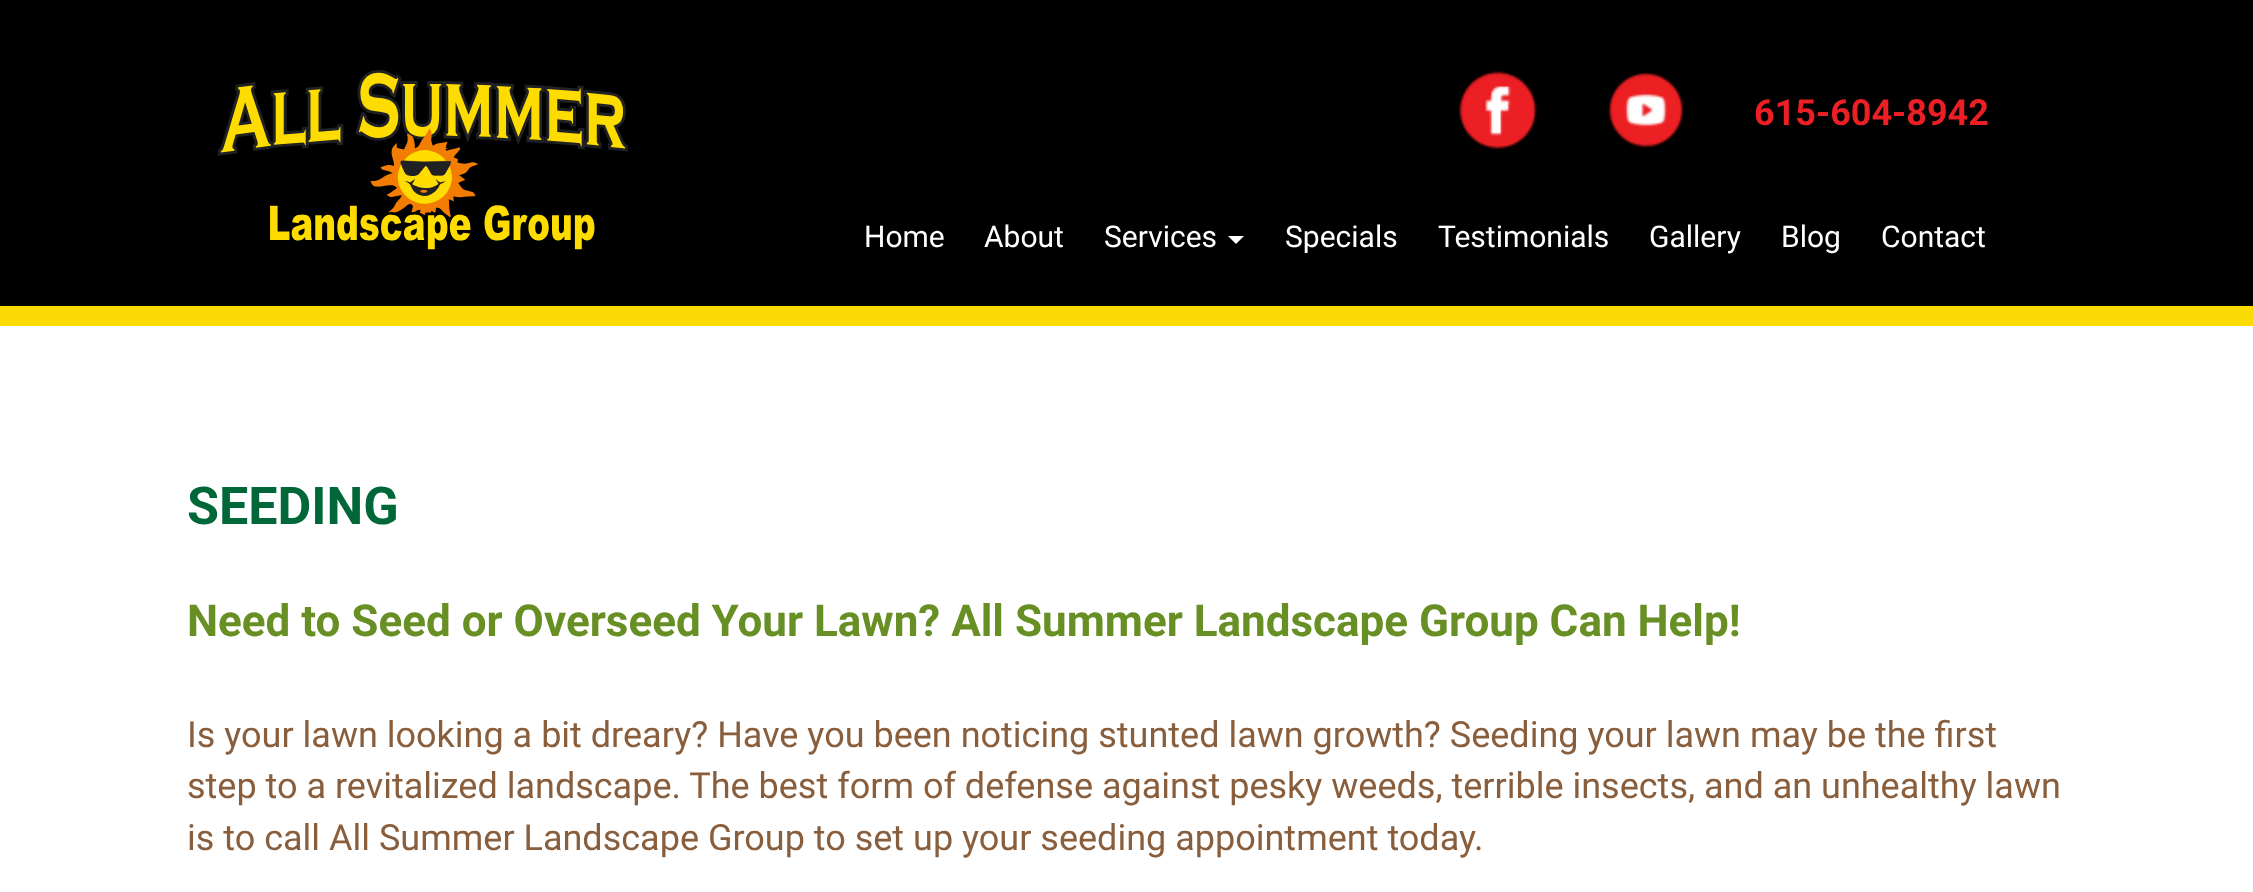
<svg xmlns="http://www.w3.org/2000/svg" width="2253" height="892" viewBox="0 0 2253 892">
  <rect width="100%" height="100%" fill="rgb(255,255,255)"/>
  <rect x="0" y="0" width="2253" height="306" fill="rgb(0,0,0)"/>
  <rect x="0" y="306" width="2253" height="20" fill="rgb(251,219,4)"/>
  <image x="218" y="70" width="410" height="180" href="pic1.png"/>
  <image x="1459" y="71" width="79" height="79" href="pic2.png"/>
  <image x="1608" y="72" width="77" height="77" href="pic3.png"/>
  <text x="1754" y="125" font-family="Roboto" font-size="36" font-weight="bold" fill="rgb(235,31,36)">615-604-8942</text>
  <g font-family="Roboto" font-size="30" fill="rgb(255,255,255)">
    <text x="864" y="247">Home</text>
    <text x="984" y="247">About</text>
    <text x="1104" y="247">Services</text>
  </g>
  <path d="M1228 236H1244L1236 244Z" fill="rgb(255,255,255)"/>
  <g font-family="Roboto" font-size="30" fill="rgb(255,255,255)">
    <text x="1285" y="247">Specials</text>
    <text x="1438" y="247">Testimonials</text>
    <text x="1649" y="247">Gallery</text>
    <text x="1781" y="247">Blog</text>
    <text x="1881" y="247">Contact</text>
  </g>
  <text x="187" y="524" font-family="Roboto" font-size="52" font-weight="bold" fill="rgb(0,104,56)">SEEDING</text>
  <text x="187" y="636" font-family="Roboto" font-size="44" font-weight="bold" fill="rgb(103,143,36)">Need to Seed or Overseed Your Lawn? All Summer Landscape Group Can Help!</text>
  <g font-family="Roboto" font-size="36" fill="rgb(137,94,60)">
    <text>
      <tspan x="187" y="747">Is your lawn looking a bit dreary? Have you been noticing stunted lawn growth? Seeding your lawn may be the first</tspan>
      <tspan x="187" y="798">step to a revitalized landscape. The best form of defense against pesky weeds, terrible insects, and an unhealthy lawn</tspan>
      <tspan x="187" y="850">is to call All Summer Landscape Group to set up your seeding appointment today.</tspan>
    </text>
  </g>
</svg>
